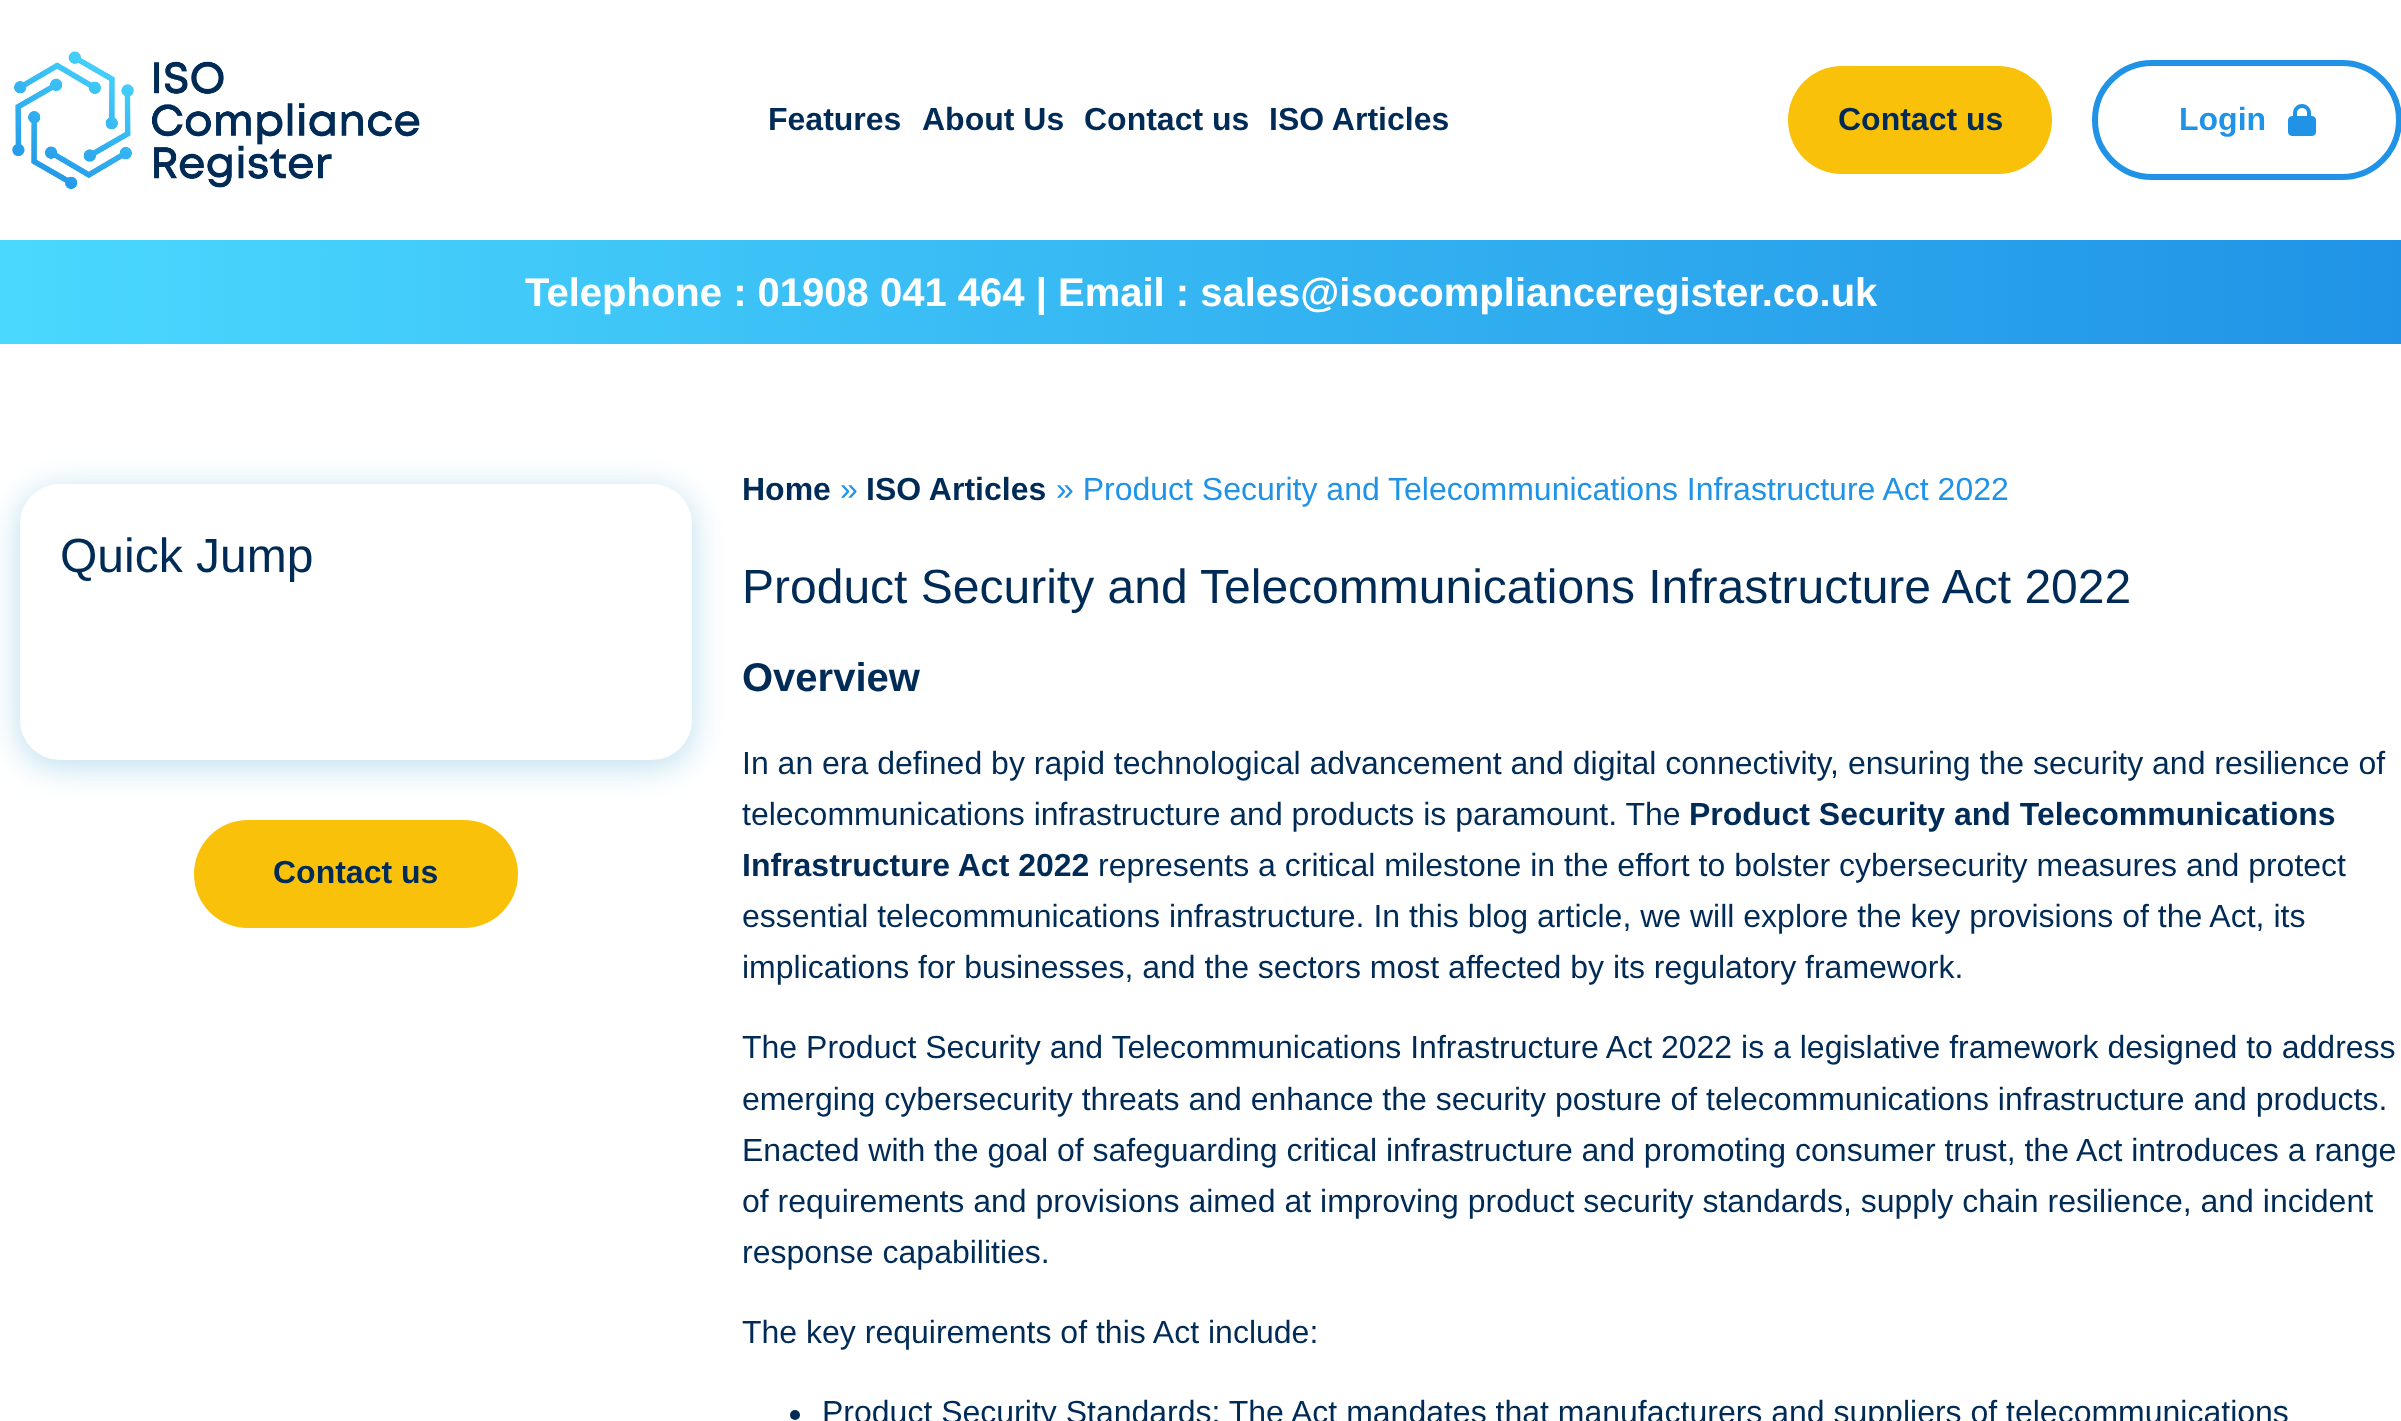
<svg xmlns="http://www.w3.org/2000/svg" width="2401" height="1421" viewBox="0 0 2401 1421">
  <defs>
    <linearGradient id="g1" gradientUnits="userSpaceOnUse" x1="0" y1="292" x2="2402" y2="292"><stop offset="0" stop-color="rgb(74,216,254)"/><stop offset="1" stop-color="rgb(32,147,230)"/></linearGradient>
  </defs>
  <rect width="100%" height="100%" fill="rgb(255,255,255)"/>
  <image x="12" y="51" width="408" height="139" href="pic1.png"/>
  <g font-family="Liberation Sans" font-size="32" font-weight="bold" fill="rgb(0,43,86)">
    <text x="768" y="130">Features</text>
    <text x="922" y="130">About Us</text>
    <text x="1084" y="130">Contact us</text>
    <text x="1269" y="130">ISO Articles</text>
  </g>
  <rect x="1788" y="66" width="264" height="108" rx="54" fill="rgb(249,193,10)"/>
  <text x="1838" y="130" font-family="Liberation Sans" font-size="32" font-weight="bold" fill="rgb(0,43,86)">Contact us</text>
  <rect x="2095" y="63" width="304" height="114" rx="57" fill="none" stroke="rgb(32,147,230)" stroke-width="6"/>
  <text x="2179" y="130" font-family="Liberation Sans" font-size="32" font-weight="bold" fill="rgb(32,147,230)">Login</text>
  <image x="2288" y="104" width="28" height="32" href="pic2.png"/>
  <rect x="0" y="240" width="2401" height="104" fill="url(#g1)"/>
  <text x="525" y="306" font-family="Liberation Sans" font-size="40" font-weight="bold" fill="rgb(255,255,255)">Telephone : 01908 041 464 | Email : sales@isocomplianceregister.co.uk</text>
  <rect x="18" y="488" width="676" height="280" rx="42" fill="rgba(142,202,228,0.56)" filter="blur(16px)"/>
  <rect x="20" y="484" width="672" height="276" rx="40" fill="rgb(255,255,255)"/>
  <path d="M60 484H652C674 484 692 502 692 524V628H20V524C20 502 38 484 60 484Z" fill="rgb(255,255,255)"/>
  <text x="60" y="572" font-family="Liberation Sans" font-size="48" fill="rgb(0,43,86)">Quick Jump</text>
  <rect x="194" y="820" width="324" height="108" rx="54" fill="rgb(249,193,10)"/>
  <g font-family="Liberation Sans" font-size="32" font-weight="bold" fill="rgb(0,43,86)">
    <text x="273" y="883">Contact us</text>
    <text x="742" y="500">Home</text>
  </g>
  <text x="840" y="500" font-family="Liberation Sans" font-size="32" fill="rgb(32,147,230)">»</text>
  <text x="866" y="500" font-family="Liberation Sans" font-size="32" font-weight="bold" fill="rgb(0,43,86)">ISO Articles</text>
  <text x="1056" y="500" font-family="Liberation Sans" font-size="32" fill="rgb(32,147,230)">» Product Security and Telecommunications Infrastructure Act 2022</text>
  <text x="742" y="603" font-family="Liberation Sans" font-size="48" fill="rgb(0,43,86)">Product Security and Telecommunications Infrastructure Act 2022</text>
  <text x="742" y="691" font-family="Liberation Sans" font-size="40" font-weight="bold" fill="rgb(0,43,86)">Overview</text>
  <g font-family="Liberation Sans" font-size="32" fill="rgb(0,43,86)">
    <text>
      <tspan x="742" y="774">In an era defined by rapid technological advancement and digital connectivity, ensuring the security and resilience of</tspan>
      <tspan x="742" y="825">telecommunications infrastructure and products is paramount. The</tspan>
    </text>
  </g>
  <g font-family="Liberation Sans" font-size="32" font-weight="bold" fill="rgb(0,43,86)">
    <text x="1689" y="825">Product Security and Telecommunications</text>
    <text x="742" y="876">Infrastructure Act 2022</text>
  </g>
  <g font-family="Liberation Sans" font-size="32" fill="rgb(0,43,86)">
    <text x="1098" y="876">represents a critical milestone in the effort to bolster cybersecurity measures and protect</text>
    <text>
      <tspan x="742" y="927">essential telecommunications infrastructure. In this blog article, we will explore the key provisions of the Act, its</tspan>
      <tspan x="742" y="978">implications for businesses, and the sectors most affected by its regulatory framework.</tspan>
    </text>
    <text>
      <tspan x="742" y="1058">The Product Security and Telecommunications Infrastructure Act 2022 is a legislative framework designed to address</tspan>
      <tspan x="742" y="1110">emerging cybersecurity threats and enhance the security posture of telecommunications infrastructure and products.</tspan>
      <tspan x="742" y="1161">Enacted with the goal of safeguarding critical infrastructure and promoting consumer trust, the Act introduces a range</tspan>
      <tspan x="742" y="1212">of requirements and provisions aimed at improving product security standards, supply chain resilience, and incident</tspan>
      <tspan x="742" y="1263">response capabilities.</tspan>
    </text>
    <text x="742" y="1343">The key requirements of this Act include:</text>
  </g>
  <circle cx="795" cy="1415" r="5" fill="rgb(0,43,86)"/>
  <text x="822" y="1423" font-family="Liberation Sans" font-size="32" fill="rgb(0,43,86)">Product Security Standards: The Act mandates that manufacturers and suppliers of telecommunications</text>
</svg>
